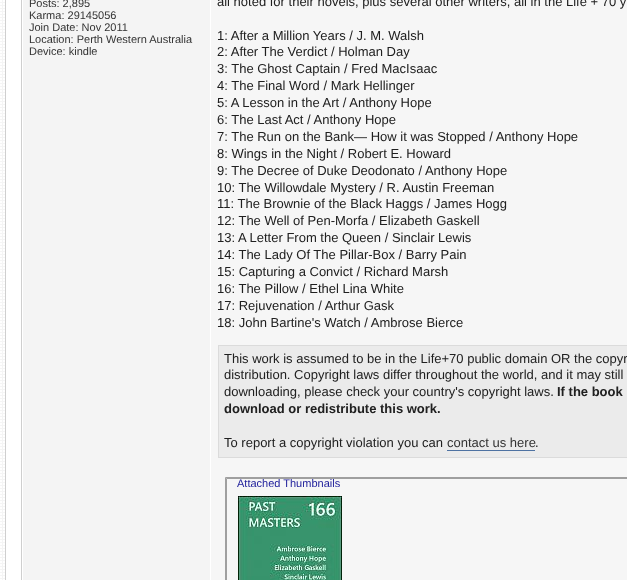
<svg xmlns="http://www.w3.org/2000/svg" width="627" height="580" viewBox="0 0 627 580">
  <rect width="100%" height="100%" fill="rgb(255,255,255)"/>
  <image x="0" y="0" width="5" height="580" href="pic1.png"/>
  <rect x="5.5" y="-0.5" width="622" height="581" fill="none" stroke="rgb(207,207,207)"/>
  <rect x="21.5" y="-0.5" width="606" height="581" fill="none" stroke="rgb(207,207,207)"/>
  <rect x="23" y="0" width="187" height="580" fill="rgb(244,244,244)"/>
  <g font-family="Liberation Sans" font-size="11" fill="rgb(51,51,51)">
    <text>
      <tspan x="29" y="7">Posts: 2,895</tspan>
      <tspan x="29" y="19">Karma: 29145056</tspan>
      <tspan x="29" y="31">Join Date: Nov 2011</tspan>
      <tspan x="29" y="43">Location: Perth Western Australia</tspan>
      <tspan x="29" y="55">Device: kindle</tspan>
    </text>
  </g>
  <rect x="211" y="0" width="416" height="580" fill="rgb(246,246,246)"/>
  <g font-family="Liberation Sans" font-size="13" fill="rgb(32,32,32)">
    <text x="217" y="6">all noted for their novels, plus several other writers, all in the Life + 70 y</text>
    <text>
      <tspan x="217" y="40">1: After a Million Years / J. M. Walsh</tspan>
      <tspan x="217" y="56">2: After The Verdict / Holman Day</tspan>
      <tspan x="217" y="73">3: The Ghost Captain / Fred MacIsaac</tspan>
      <tspan x="217" y="90">4: The Final Word / Mark Hellinger</tspan>
      <tspan x="217" y="107">5: A Lesson in the Art / Anthony Hope</tspan>
      <tspan x="217" y="124">6: The Last Act / Anthony Hope</tspan>
      <tspan x="217" y="141">7: The Run on the Bank— How it was Stopped / Anthony Hope</tspan>
      <tspan x="217" y="158">8: Wings in the Night / Robert E. Howard</tspan>
      <tspan x="217" y="175">9: The Decree of Duke Deodonato / Anthony Hope</tspan>
      <tspan x="217" y="192">10: The Willowdale Mystery / R. Austin Freeman</tspan>
      <tspan x="217" y="208">11: The Brownie of the Black Haggs / James Hogg</tspan>
      <tspan x="217" y="225">12: The Well of Pen-Morfa / Elizabeth Gaskell</tspan>
      <tspan x="217" y="242">13: A Letter From the Queen / Sinclair Lewis</tspan>
      <tspan x="217" y="259">14: The Lady Of The Pillar-Box / Barry Pain</tspan>
      <tspan x="217" y="276">15: Capturing a Convict / Richard Marsh</tspan>
      <tspan x="217" y="293">16: The Pillow / Ethel Lina White</tspan>
      <tspan x="217" y="310">17: Rejuvenation / Arthur Gask</tspan>
      <tspan x="217" y="327">18: John Bartine's Watch / Ambrose Bierce</tspan>
    </text>
  </g>
  <rect x="218.5" y="345.5" width="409" height="112" fill="rgb(235,235,235)" stroke="rgb(219,219,219)"/>
  <g font-family="Liberation Sans" font-size="13" fill="rgb(32,32,32)">
    <text>
      <tspan x="224" y="363">This work is assumed to be in the Life+70 public domain OR the copyr</tspan>
      <tspan x="224" y="379">distribution. Copyright laws differ throughout the world, and it may still</tspan>
      <tspan x="224" y="396">downloading, please check your country's copyright laws.</tspan>
    </text>
  </g>
  <g font-family="Liberation Sans" font-size="13" font-weight="bold" fill="rgb(32,32,32)">
    <text x="557" y="396">If the book</text>
    <text x="224" y="413">download or redistribute this work.</text>
  </g>
  <text x="224" y="447" font-family="Liberation Sans" font-size="13" fill="rgb(32,32,32)">To report a copyright violation you can</text>
  <text x="447" y="447" font-family="Liberation Sans" font-size="13" fill="rgb(51,51,51)">contact us here</text>
  <rect x="447" y="450" width="88" height="1" fill="rgb(78,114,162)"/>
  <text x="535" y="447" font-family="Liberation Sans" font-size="13" fill="rgb(32,32,32)">.</text>
  <path d="M225 477H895L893 479H227Z" fill="rgb(159,159,159)"/>
  <path d="M225 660V477L227 479V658Z" fill="rgb(159,159,159)"/>
  <text x="237" y="487" font-family="Liberation Sans" font-size="11" fill="rgb(34,34,156)">Attached Thumbnails</text>
  <image x="238" y="496" width="104" height="84" href="pic2.png"/>
</svg>
